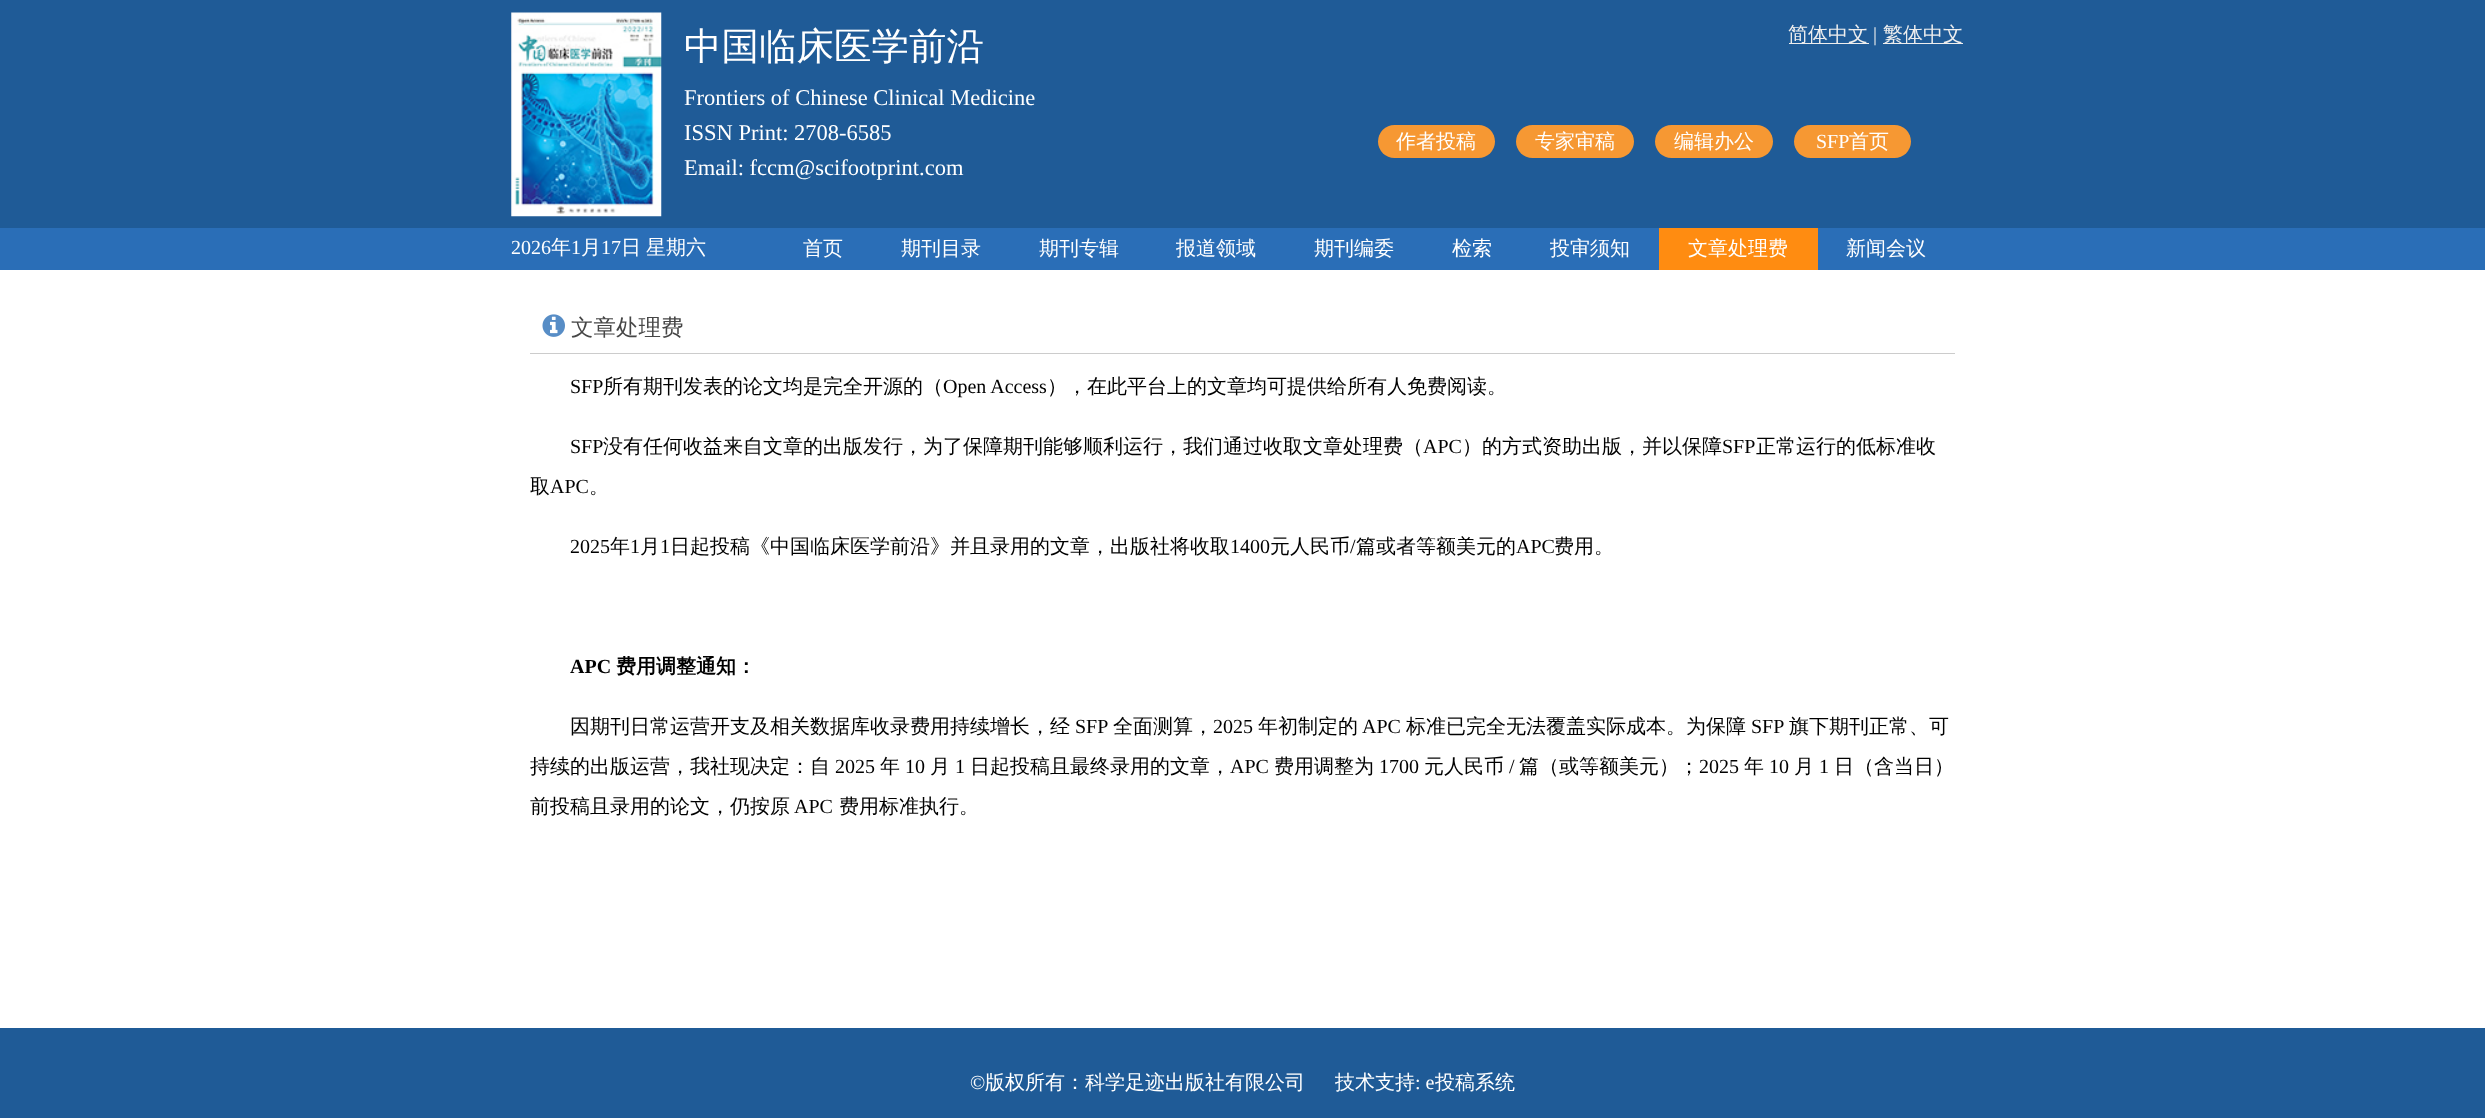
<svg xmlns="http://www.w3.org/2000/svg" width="2485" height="1118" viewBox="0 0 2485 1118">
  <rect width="100%" height="100%" fill="rgb(255,255,255)"/>
  <rect x="0" y="0" width="2485" height="228" fill="rgb(31,91,151)"/>
  <image x="511" y="12" width="151" height="205" href="pic1.png"/>
  <text x="684" y="59" font-family="WenQuanYi Zen Hei" font-size="37.5" font-weight="500" fill="rgb(255,255,255)">中国临床医学前沿</text>
  <g font-family="Liberation Serif" font-size="22.5" fill="rgb(255,255,255)">
    <text>
      <tspan x="684" y="105">Frontiers of Chinese Clinical Medicine</tspan>
      <tspan x="684" y="140">ISSN Print: 2708-6585</tspan>
      <tspan x="684" y="175">Email: fccm@scifootprint.com</tspan>
    </text>
  </g>
  <rect x="1789" y="43" width="80" height="1" fill="rgb(238,238,238)"/>
  <text x="1788" y="41" font-family="WenQuanYi Zen Hei" font-size="20" font-weight="500" fill="rgb(238,238,238)">简体中文</text>
  <text x="1873" y="41" font-family="Liberation Serif" font-size="20" fill="rgb(238,238,238)">|</text>
  <rect x="1883" y="43" width="80" height="1" fill="rgb(238,238,238)"/>
  <text x="1883" y="41" font-family="WenQuanYi Zen Hei" font-size="20" font-weight="500" fill="rgb(238,238,238)">繁体中文</text>
  <rect x="1378" y="125" width="117" height="33" rx="16.5" fill="rgb(246,152,51)"/>
  <text x="1396" y="148" font-family="WenQuanYi Zen Hei" font-size="20" font-weight="500" fill="rgb(255,255,255)">作者投稿</text>
  <rect x="1516" y="125" width="118" height="33" rx="16.5" fill="rgb(246,152,51)"/>
  <text x="1535" y="148" font-family="WenQuanYi Zen Hei" font-size="20" font-weight="500" fill="rgb(255,255,255)">专家审稿</text>
  <rect x="1655" y="125" width="118" height="33" rx="16.5" fill="rgb(246,152,51)"/>
  <text x="1674" y="148" font-family="WenQuanYi Zen Hei" font-size="20" font-weight="500" fill="rgb(255,255,255)">编辑办公</text>
  <rect x="1794" y="125" width="117" height="33" rx="16.5" fill="rgb(246,152,51)"/>
  <text x="1816" y="148" font-family="Liberation Serif" font-size="20" fill="rgb(255,255,255)">SFP</text>
  <text x="1849" y="148" font-family="WenQuanYi Zen Hei" font-size="20" font-weight="500" fill="rgb(255,255,255)">首页</text>
  <rect x="0" y="228" width="2485" height="42" fill="rgb(42,110,183)"/>
  <text x="511" y="254" font-family="Liberation Serif" font-size="20" fill="rgb(255,255,255)">2026</text>
  <text x="551" y="254" font-family="WenQuanYi Zen Hei" font-size="20" font-weight="500" fill="rgb(255,255,255)">年</text>
  <text x="571" y="254" font-family="Liberation Serif" font-size="20" fill="rgb(255,255,255)">1</text>
  <text x="581" y="254" font-family="WenQuanYi Zen Hei" font-size="20" font-weight="500" fill="rgb(255,255,255)">月</text>
  <text x="601" y="254" font-family="Liberation Serif" font-size="20" fill="rgb(255,255,255)">17</text>
  <g font-family="WenQuanYi Zen Hei" font-size="20" font-weight="500" fill="rgb(255,255,255)">
    <text x="621" y="254" word-spacing="-1">日 星期六</text>
    <text x="803" y="255">首页</text>
    <text x="901" y="255">期刊目录</text>
    <text x="1039" y="255">期刊专辑</text>
    <text x="1176" y="255">报道领域</text>
    <text x="1314" y="255">期刊编委</text>
    <text x="1452" y="255">检索</text>
    <text x="1550" y="255">投审须知</text>
  </g>
  <rect x="1659" y="228" width="159" height="42" fill="rgb(255,140,17)"/>
  <g font-family="WenQuanYi Zen Hei" font-size="20" font-weight="500" fill="rgb(255,255,255)">
    <text x="1688" y="255">文章处理费</text>
    <text x="1846" y="255">新闻会议</text>
  </g>
  <rect x="530" y="353" width="1425" height="1" fill="rgb(204,204,204)"/>
  <image x="542" y="314" width="23" height="23" href="pic2.png"/>
  <text x="571" y="335" font-family="WenQuanYi Zen Hei" font-size="22.5" font-weight="500" fill="rgb(70,70,70)">文章处理费</text>
  <text x="570" y="393" font-family="Liberation Serif" font-size="20" fill="rgb(0,0,0)">SFP</text>
  <text x="603" y="393" font-family="WenQuanYi Zen Hei" font-size="20" font-weight="500" fill="rgb(0,0,0)">所有期刊发表的论文均是完全开源的（</text>
  <text x="943" y="393" font-family="Liberation Serif" font-size="20" fill="rgb(0,0,0)">Open Access</text>
  <text x="1047" y="393" font-family="WenQuanYi Zen Hei" font-size="20" font-weight="500" fill="rgb(0,0,0)">），在此平台上的文章均可提供给所有人免费阅读。</text>
  <text x="570" y="453" font-family="Liberation Serif" font-size="20" fill="rgb(0,0,0)">SFP</text>
  <text x="603" y="453" font-family="WenQuanYi Zen Hei" font-size="20" font-weight="500" fill="rgb(0,0,0)">没有任何收益来自文章的出版发行，为了保障期刊能够顺利运行，我们通过收取文章处理费（</text>
  <text x="1423" y="453" font-family="Liberation Serif" font-size="20" fill="rgb(0,0,0)">APC</text>
  <text x="1462" y="453" font-family="WenQuanYi Zen Hei" font-size="20" font-weight="500" fill="rgb(0,0,0)">）的方式资助出版，并以保障</text>
  <text x="1722" y="453" font-family="Liberation Serif" font-size="20" fill="rgb(0,0,0)">SFP</text>
  <g font-family="WenQuanYi Zen Hei" font-size="20" font-weight="500" fill="rgb(0,0,0)">
    <text x="1756" y="453">正常运行的低标准收</text>
    <text x="530" y="493">取</text>
  </g>
  <text x="550" y="493" font-family="Liberation Serif" font-size="20" fill="rgb(0,0,0)">APC</text>
  <text x="589" y="493" font-family="WenQuanYi Zen Hei" font-size="20" font-weight="500" fill="rgb(0,0,0)">。</text>
  <text x="570" y="553" font-family="Liberation Serif" font-size="20" fill="rgb(0,0,0)">2025</text>
  <text x="610" y="553" font-family="WenQuanYi Zen Hei" font-size="20" font-weight="500" fill="rgb(0,0,0)">年</text>
  <text x="630" y="553" font-family="Liberation Serif" font-size="20" fill="rgb(0,0,0)">1</text>
  <text x="640" y="553" font-family="WenQuanYi Zen Hei" font-size="20" font-weight="500" fill="rgb(0,0,0)">月</text>
  <text x="660" y="553" font-family="Liberation Serif" font-size="20" fill="rgb(0,0,0)">1</text>
  <text x="670" y="553" font-family="WenQuanYi Zen Hei" font-size="20" font-weight="500" fill="rgb(0,0,0)">日起投稿《中国临床医学前沿》并且录用的文章，出版社将收取</text>
  <text x="1230" y="553" font-family="Liberation Serif" font-size="20" fill="rgb(0,0,0)">1400</text>
  <text x="1270" y="553" font-family="WenQuanYi Zen Hei" font-size="20" font-weight="500" fill="rgb(0,0,0)">元人民币</text>
  <text x="1350" y="553" font-family="Liberation Serif" font-size="20" fill="rgb(0,0,0)">/</text>
  <text x="1356" y="553" font-family="WenQuanYi Zen Hei" font-size="20" font-weight="500" fill="rgb(0,0,0)">篇或者等额美元的</text>
  <text x="1516" y="553" font-family="Liberation Serif" font-size="20" fill="rgb(0,0,0)">APC</text>
  <text x="1554" y="553" font-family="WenQuanYi Zen Hei" font-size="20" font-weight="500" fill="rgb(0,0,0)">费用。</text>
  <text x="570" y="673" font-family="Liberation Serif" font-size="20" font-weight="bold" fill="rgb(0,0,0)">APC</text>
  <text x="616" y="673" font-family="WenQuanYi Zen Hei" font-size="20" font-weight="bold" fill="rgb(0,0,0)">费用调整通知：</text>
  <text x="570" y="733" font-family="WenQuanYi Zen Hei" font-size="20" font-weight="500" fill="rgb(0,0,0)">因期刊日常运营开支及相关数据库收录费用持续增长，经</text>
  <text x="1075" y="733" font-family="Liberation Serif" font-size="20" fill="rgb(0,0,0)">SFP</text>
  <text x="1113" y="733" font-family="WenQuanYi Zen Hei" font-size="20" font-weight="500" fill="rgb(0,0,0)">全面测算，</text>
  <text x="1213" y="733" font-family="Liberation Serif" font-size="20" fill="rgb(0,0,0)">2025</text>
  <text x="1258" y="733" font-family="WenQuanYi Zen Hei" font-size="20" font-weight="500" fill="rgb(0,0,0)">年初制定的</text>
  <text x="1362" y="733" font-family="Liberation Serif" font-size="20" fill="rgb(0,0,0)">APC</text>
  <text x="1406" y="733" font-family="WenQuanYi Zen Hei" font-size="20" font-weight="500" fill="rgb(0,0,0)">标准已完全无法覆盖实际成本。为保障</text>
  <text x="1751" y="733" font-family="Liberation Serif" font-size="20" fill="rgb(0,0,0)">SFP</text>
  <g font-family="WenQuanYi Zen Hei" font-size="20" font-weight="500" fill="rgb(0,0,0)">
    <text x="1789" y="733">旗下期刊正常、可</text>
    <text x="530" y="773">持续的出版运营，我社现决定：自</text>
  </g>
  <text x="835" y="773" font-family="Liberation Serif" font-size="20" fill="rgb(0,0,0)">2025</text>
  <text x="880" y="773" font-family="WenQuanYi Zen Hei" font-size="20" font-weight="500" fill="rgb(0,0,0)">年</text>
  <text x="905" y="773" font-family="Liberation Serif" font-size="20" fill="rgb(0,0,0)">10</text>
  <text x="930" y="773" font-family="WenQuanYi Zen Hei" font-size="20" font-weight="500" fill="rgb(0,0,0)">月</text>
  <text x="955" y="773" font-family="Liberation Serif" font-size="20" fill="rgb(0,0,0)">1</text>
  <text x="970" y="773" font-family="WenQuanYi Zen Hei" font-size="20" font-weight="500" fill="rgb(0,0,0)">日起投稿且最终录用的文章，</text>
  <text x="1230" y="773" font-family="Liberation Serif" font-size="20" fill="rgb(0,0,0)">APC</text>
  <text x="1274" y="773" font-family="WenQuanYi Zen Hei" font-size="20" font-weight="500" fill="rgb(0,0,0)">费用调整为</text>
  <text x="1379" y="773" font-family="Liberation Serif" font-size="20" fill="rgb(0,0,0)">1700</text>
  <text x="1424" y="773" font-family="WenQuanYi Zen Hei" font-size="20" font-weight="500" fill="rgb(0,0,0)">元人民币</text>
  <text x="1509" y="773" font-family="Liberation Serif" font-size="20" fill="rgb(0,0,0)">/</text>
  <text x="1519" y="773" font-family="WenQuanYi Zen Hei" font-size="20" font-weight="500" fill="rgb(0,0,0)">篇（或等额美元）；</text>
  <text x="1699" y="773" font-family="Liberation Serif" font-size="20" fill="rgb(0,0,0)">2025</text>
  <text x="1744" y="773" font-family="WenQuanYi Zen Hei" font-size="20" font-weight="500" fill="rgb(0,0,0)">年</text>
  <text x="1769" y="773" font-family="Liberation Serif" font-size="20" fill="rgb(0,0,0)">10</text>
  <text x="1794" y="773" font-family="WenQuanYi Zen Hei" font-size="20" font-weight="500" fill="rgb(0,0,0)">月</text>
  <text x="1819" y="773" font-family="Liberation Serif" font-size="20" fill="rgb(0,0,0)">1</text>
  <g font-family="WenQuanYi Zen Hei" font-size="20" font-weight="500" fill="rgb(0,0,0)">
    <text x="1834" y="773">日（含当日）</text>
    <text x="530" y="813">前投稿且录用的论文，仍按原</text>
  </g>
  <text x="794" y="813" font-family="Liberation Serif" font-size="20" fill="rgb(0,0,0)">APC</text>
  <text x="839" y="813" font-family="WenQuanYi Zen Hei" font-size="20" font-weight="500" fill="rgb(0,0,0)">费用标准执行。</text>
  <rect x="0" y="1028" width="2485" height="90" fill="rgb(31,91,151)"/>
  <text x="970" y="1089" font-family="Liberation Serif" font-size="20" fill="rgb(255,255,255)">©</text>
  <g font-family="WenQuanYi Zen Hei" font-size="20" font-weight="500" fill="rgb(255,255,255)">
    <text x="985" y="1089">版权所有：科学足迹出版社有限公司</text>
    <text x="1335" y="1089">技术支持</text>
  </g>
  <text x="1415" y="1089" font-family="Liberation Serif" font-size="20" fill="rgb(255,255,255)">: e</text>
  <text x="1435" y="1089" font-family="WenQuanYi Zen Hei" font-size="20" font-weight="500" fill="rgb(255,255,255)">投稿系统</text>
</svg>
